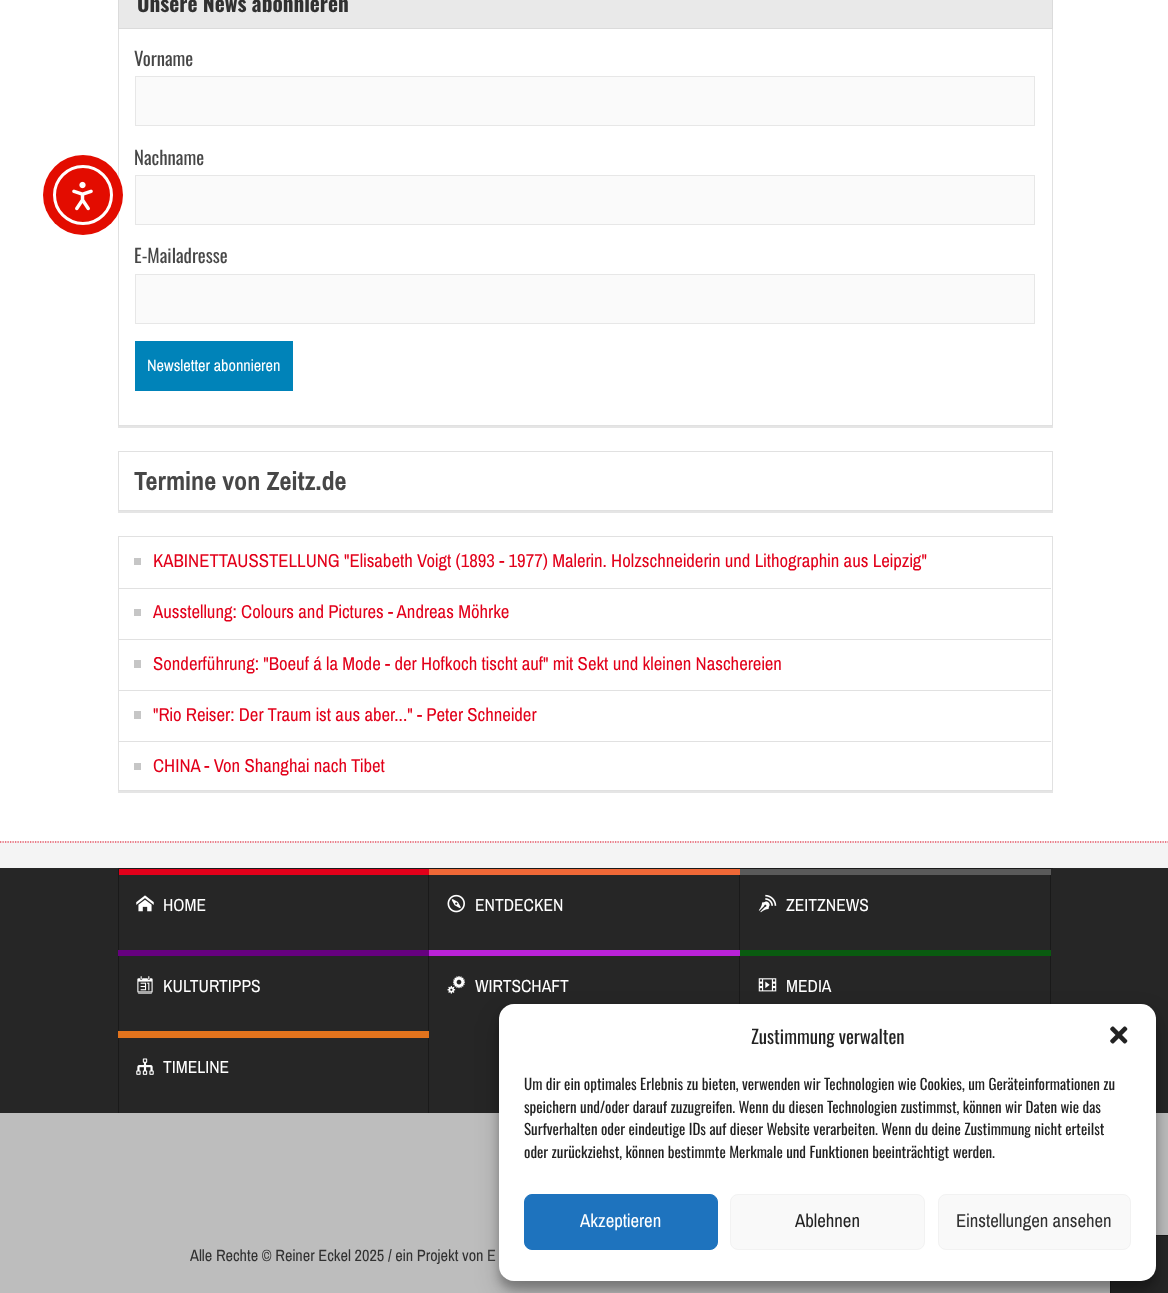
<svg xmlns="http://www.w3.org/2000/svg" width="1168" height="1293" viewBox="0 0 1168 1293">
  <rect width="100%" height="100%" fill="rgb(255,255,255)"/>
  <path d="M118 426V428H1053V-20H1052V426Z" fill="rgb(229,229,229)"/>
  <rect x="118.5" y="-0.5" width="934" height="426" fill="none" stroke="rgb(225,225,225)"/>
  <circle cx="83" cy="195" r="40" fill="rgb(227,12,0)"/>
  <circle cx="83" cy="195" r="28.5" fill="none" stroke="rgb(255,255,255)" stroke-width="3"/>
  <image x="72" y="181" width="21" height="30" href="pic1.png"/>
  <rect x="118.5" y="-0.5" width="934" height="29" fill="rgb(233,233,233)" stroke="rgb(219,219,219)"/>
  <text x="137" y="12" font-family="Oswald" font-size="21.25" font-weight="bold" fill="rgb(49,49,49)">Unsere News abonnieren</text>
  <text x="134" y="66" font-family="Oswald" font-size="18.75" fill="rgb(71,71,71)">Vorname</text>
  <rect x="135.5" y="76.5" width="899" height="49" fill="rgb(250,250,250)" stroke="rgb(231,231,231)"/>
  <text x="134" y="165" font-family="Oswald" font-size="18.75" fill="rgb(71,71,71)">Nachname</text>
  <rect x="135.5" y="175.5" width="899" height="49" fill="rgb(250,250,250)" stroke="rgb(231,231,231)"/>
  <text x="134" y="263" font-family="Oswald" font-size="18.75" fill="rgb(71,71,71)">E-Mailadresse</text>
  <rect x="135.5" y="274.5" width="899" height="49" fill="rgb(250,250,250)" stroke="rgb(231,231,231)"/>
  <rect x="135" y="341" width="158" height="50" fill="rgb(0,131,185)"/>
  <text x="147" y="371" font-family="Archivo Narrow" font-size="16.25" fill="rgb(255,255,255)">Newsletter abonnieren</text>
  <path d="M118 511V513H1053V453H1052V511Z" fill="rgb(229,229,229)"/>
  <rect x="118.5" y="451.5" width="934" height="59" fill="none" stroke="rgb(225,225,225)"/>
  <text x="134" y="490" font-family="Archivo Narrow" font-size="26.25" font-weight="bold" fill="rgb(71,71,71)">Termine von Zeitz.de</text>
  <path d="M118 791V793H1053V538H1052V791Z" fill="rgb(229,229,229)"/>
  <rect x="118.5" y="536.5" width="934" height="254" fill="none" stroke="rgb(225,225,225)"/>
  <rect x="119" y="588" width="932" height="1" fill="rgb(225,225,225)"/>
  <rect x="134" y="558" width="7" height="7" fill="rgb(198,198,198)"/>
  <text x="153" y="567" font-family="Archivo Narrow" font-size="18.75" fill="rgb(226,0,26)">KABINETTAUSSTELLUNG "Elisabeth Voigt (1893 - 1977) Malerin. Holzschneiderin und Lithographin aus Leipzig"</text>
  <rect x="119" y="639" width="932" height="1" fill="rgb(225,225,225)"/>
  <rect x="134" y="609" width="7" height="7" fill="rgb(198,198,198)"/>
  <text x="153" y="618" font-family="Archivo Narrow" font-size="18.75" fill="rgb(226,0,26)">Ausstellung: Colours and Pictures - Andreas Möhrke</text>
  <rect x="119" y="690" width="932" height="1" fill="rgb(225,225,225)"/>
  <rect x="134" y="660" width="7" height="8" fill="rgb(198,198,198)"/>
  <text x="153" y="670" font-family="Archivo Narrow" font-size="18.75" fill="rgb(226,0,26)">Sonderführung: "Boeuf á la Mode - der Hofkoch tischt auf" mit Sekt und kleinen Naschereien</text>
  <rect x="119" y="741" width="932" height="1" fill="rgb(225,225,225)"/>
  <rect x="134" y="711" width="7" height="8" fill="rgb(198,198,198)"/>
  <text x="153" y="721" font-family="Archivo Narrow" font-size="18.75" fill="rgb(226,0,26)">"Rio Reiser: Der Traum ist aus aber..." - Peter Schneider</text>
  <rect x="134" y="763" width="7" height="7" fill="rgb(198,198,198)"/>
  <text x="153" y="772" font-family="Archivo Narrow" font-size="18.75" fill="rgb(226,0,26)">CHINA - Von Shanghai nach Tibet</text>
  <rect x="0" y="841" width="1168" height="27" fill="rgb(244,244,244)"/>
  <path d="M0 842H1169" fill="none" stroke="rgb(226,0,26)" stroke-width="1.2" stroke-dasharray="1.25 1.25"/>
  <rect x="0" y="868" width="1168" height="245" fill="rgb(38,38,38)"/>
  <rect x="118" y="868" width="935" height="1" fill="rgb(26,26,26)"/>
  <rect x="428" y="869" width="1" height="244" fill="rgb(26,26,26)"/>
  <rect x="118" y="869" width="311" height="6" fill="rgb(226,0,26)"/>
  <rect x="118" y="869" width="1" height="244" fill="rgb(26,26,26)"/>
  <image x="136" y="895" width="18" height="17" href="pic2.png"/>
  <text x="163" y="911" font-family="Archivo Narrow" font-size="17.5" fill="rgb(255,255,255)">HOME</text>
  <rect x="739" y="869" width="1" height="135" fill="rgb(26,26,26)"/>
  <rect x="429" y="869" width="311" height="6" fill="rgb(239,104,55)"/>
  <image x="447" y="894" width="18" height="19" href="pic3.png"/>
  <text x="475" y="911" font-family="Archivo Narrow" font-size="17.5" fill="rgb(255,255,255)">ENTDECKEN</text>
  <rect x="1050" y="869" width="1" height="135" fill="rgb(26,26,26)"/>
  <rect x="740" y="869" width="311" height="6" fill="rgb(90,90,90)"/>
  <image x="758" y="894" width="19" height="19" href="pic4.png"/>
  <text x="786" y="911" font-family="Archivo Narrow" font-size="17.5" fill="rgb(255,255,255)">ZEITZNEWS</text>
  <rect x="118" y="950" width="311" height="6" fill="rgb(102,1,127)"/>
  <image x="137" y="976" width="16" height="18" href="pic5.png"/>
  <text x="163" y="992" font-family="Archivo Narrow" font-size="17.5" fill="rgb(255,255,255)">KULTURTIPPS</text>
  <rect x="429" y="950" width="311" height="6" fill="rgb(186,34,216)"/>
  <image x="447" y="976" width="18" height="18" href="pic6.png"/>
  <text x="475" y="992" font-family="Archivo Narrow" font-size="17.5" fill="rgb(255,255,255)">WIRTSCHAFT</text>
  <rect x="740" y="950" width="311" height="6" fill="rgb(9,91,16)"/>
  <image x="758" y="978" width="19" height="14" href="pic7.png"/>
  <text x="786" y="992" font-family="Archivo Narrow" font-size="17.5" fill="rgb(255,255,255)">MEDIA</text>
  <rect x="118" y="1031" width="311" height="7" fill="rgb(226,115,29)"/>
  <image x="136" y="1058" width="18" height="17" href="pic8.png"/>
  <text x="163" y="1073" font-family="Archivo Narrow" font-size="17.5" fill="rgb(255,255,255)">TIMELINE</text>
  <rect x="0" y="1113" width="1168" height="180" fill="rgb(189,189,189)"/>
  <text x="190" y="1261" font-family="Archivo Narrow" font-size="16.25" fill="rgb(49,49,49)">Alle Rechte © Reiner Eckel 2025 / ein Projekt von</text>
  <text x="487" y="1261" font-family="Archivo Narrow" font-size="16.25" fill="rgb(63,63,63)">E</text>
  <rect x="1110.5" y="1235.5" width="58" height="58" fill="rgb(38,38,38)" stroke="rgb(26,26,26)"/>
  <rect x="499" y="1011" width="657" height="278" rx="15" fill="rgba(0,0,0,0.23)" filter="blur(4px)"/>
  <rect x="499" y="1016" width="657" height="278" rx="15" fill="rgba(0,0,0,0.19)" filter="blur(12.5px)"/>
  <rect x="499" y="1004" width="657" height="277" rx="15" fill="rgb(255,255,255)"/>
  <text x="751" y="1044" font-family="Oswald" font-size="18.75" fill="rgb(34,34,34)">Zustimmung verwalten</text>
  <image x="1110" y="1026" width="18" height="18" href="pic9.png"/>
  <g font-family="Oswald" font-size="15" fill="rgb(34,34,34)">
    <text>
      <tspan x="524" y="1090">Um dir ein optimales Erlebnis zu bieten, verwenden wir Technologien wie Cookies, um Geräteinformationen zu</tspan>
      <tspan x="524" y="1113">speichern und/oder darauf zuzugreifen. Wenn du diesen Technologien zustimmst, können wir Daten wie das</tspan>
      <tspan x="524" y="1135">Surfverhalten oder eindeutige IDs auf dieser Website verarbeiten. Wenn du deine Zustimmung nicht erteilst</tspan>
      <tspan x="524" y="1158">oder zurückziehst, können bestimmte Merkmale und Funktionen beeinträchtigt werden.</tspan>
    </text>
  </g>
  <rect x="524.5" y="1194.5" width="193" height="55" rx="7.5" fill="rgb(30,115,190)" stroke="rgb(30,115,190)"/>
  <text x="580" y="1227" font-family="Archivo Narrow" font-size="18.75" fill="rgb(255,255,255)">Akzeptieren</text>
  <rect x="730.5" y="1194.5" width="194" height="55" rx="7.5" fill="rgb(249,249,249)" stroke="rgb(242,242,242)"/>
  <text x="795" y="1227" font-family="Archivo Narrow" font-size="18.75" fill="rgb(34,34,34)">Ablehnen</text>
  <rect x="938.5" y="1194.5" width="192" height="55" rx="7.5" fill="rgb(249,249,249)" stroke="rgb(242,242,242)"/>
  <text x="956" y="1227" font-family="Archivo Narrow" font-size="18.75" fill="rgb(49,49,49)">Einstellungen ansehen</text>
</svg>
